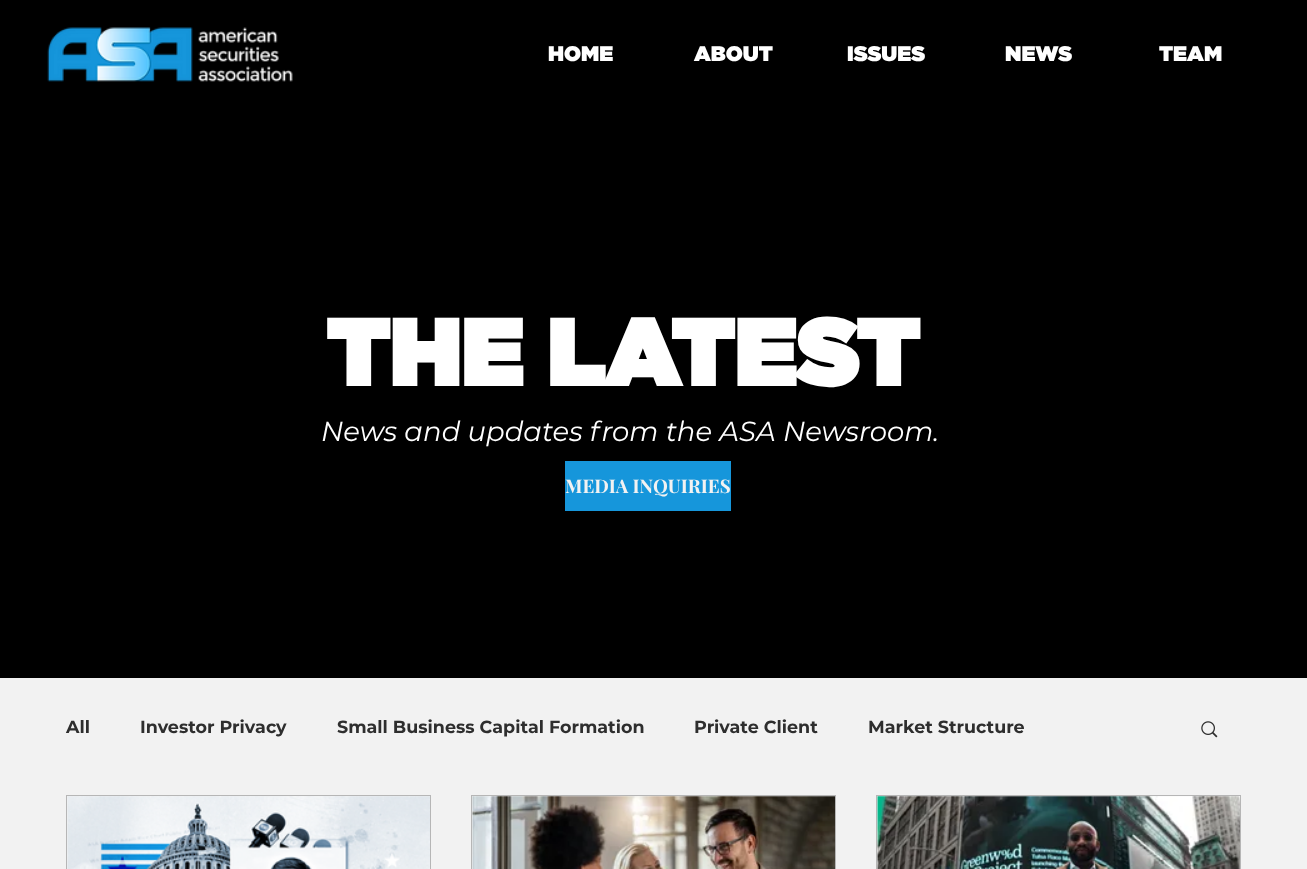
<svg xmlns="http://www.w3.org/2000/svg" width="1307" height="869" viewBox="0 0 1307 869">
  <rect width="100%" height="100%" fill="rgb(242,242,242)"/>
  <rect x="0" y="0" width="1307" height="678" fill="rgb(0,0,0)"/>
  <image x="47" y="27" width="246" height="55" href="pic1.png"/>
  <g font-family="Gotham" font-size="21" fill="rgb(255,255,255)">
    <text x="548" y="61">HOME</text>
    <text x="694" y="61">ABOUT</text>
    <text x="847" y="61">ISSUES</text>
    <text x="1005" y="61">NEWS</text>
    <text x="1159" y="61">TEAM</text>
  </g>
  <text x="326" y="386" font-family="Gotham" font-size="93.75" font-weight="bold" fill="rgb(255,255,255)">THE LATEST</text>
  <text x="321" y="441" font-family="Montserrat" font-size="27.5" font-style="italic" fill="rgb(255,255,255)">News and updates from the ASA Newsroom.</text>
  <rect x="565" y="461" width="166" height="50" fill="rgb(22,150,219)"/>
  <text x="565" y="493" font-family="Playfair Display" font-size="18.75" font-weight="bold" fill="rgb(242,242,242)">MEDIA INQUIRIES</text>
  <g font-family="Montserrat" font-size="17.5" font-weight="bold" fill="rgb(46,46,46)">
    <text x="66" y="733">All</text>
    <text x="140" y="733">Investor Privacy</text>
    <text x="337" y="733">Small Business Capital Formation</text>
    <text x="694" y="733">Private Client</text>
    <text x="868" y="733">Market Structure</text>
  </g>
  <image x="1201" y="721" width="17" height="17" href="pic2.png"/>
  <rect x="66.5" y="795.5" width="364" height="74" fill="none" stroke="rgb(182,182,182)"/>
  <image x="67" y="796" width="363" height="73" href="pic3.png"/>
  <rect x="471.5" y="795.5" width="364" height="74" fill="none" stroke="rgb(182,182,182)"/>
  <image x="472" y="796" width="363" height="73" href="pic4.png"/>
  <rect x="876.5" y="795.5" width="364" height="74" fill="none" stroke="rgb(182,182,182)"/>
  <image x="877" y="796" width="363" height="73" href="pic5.png"/>
</svg>
